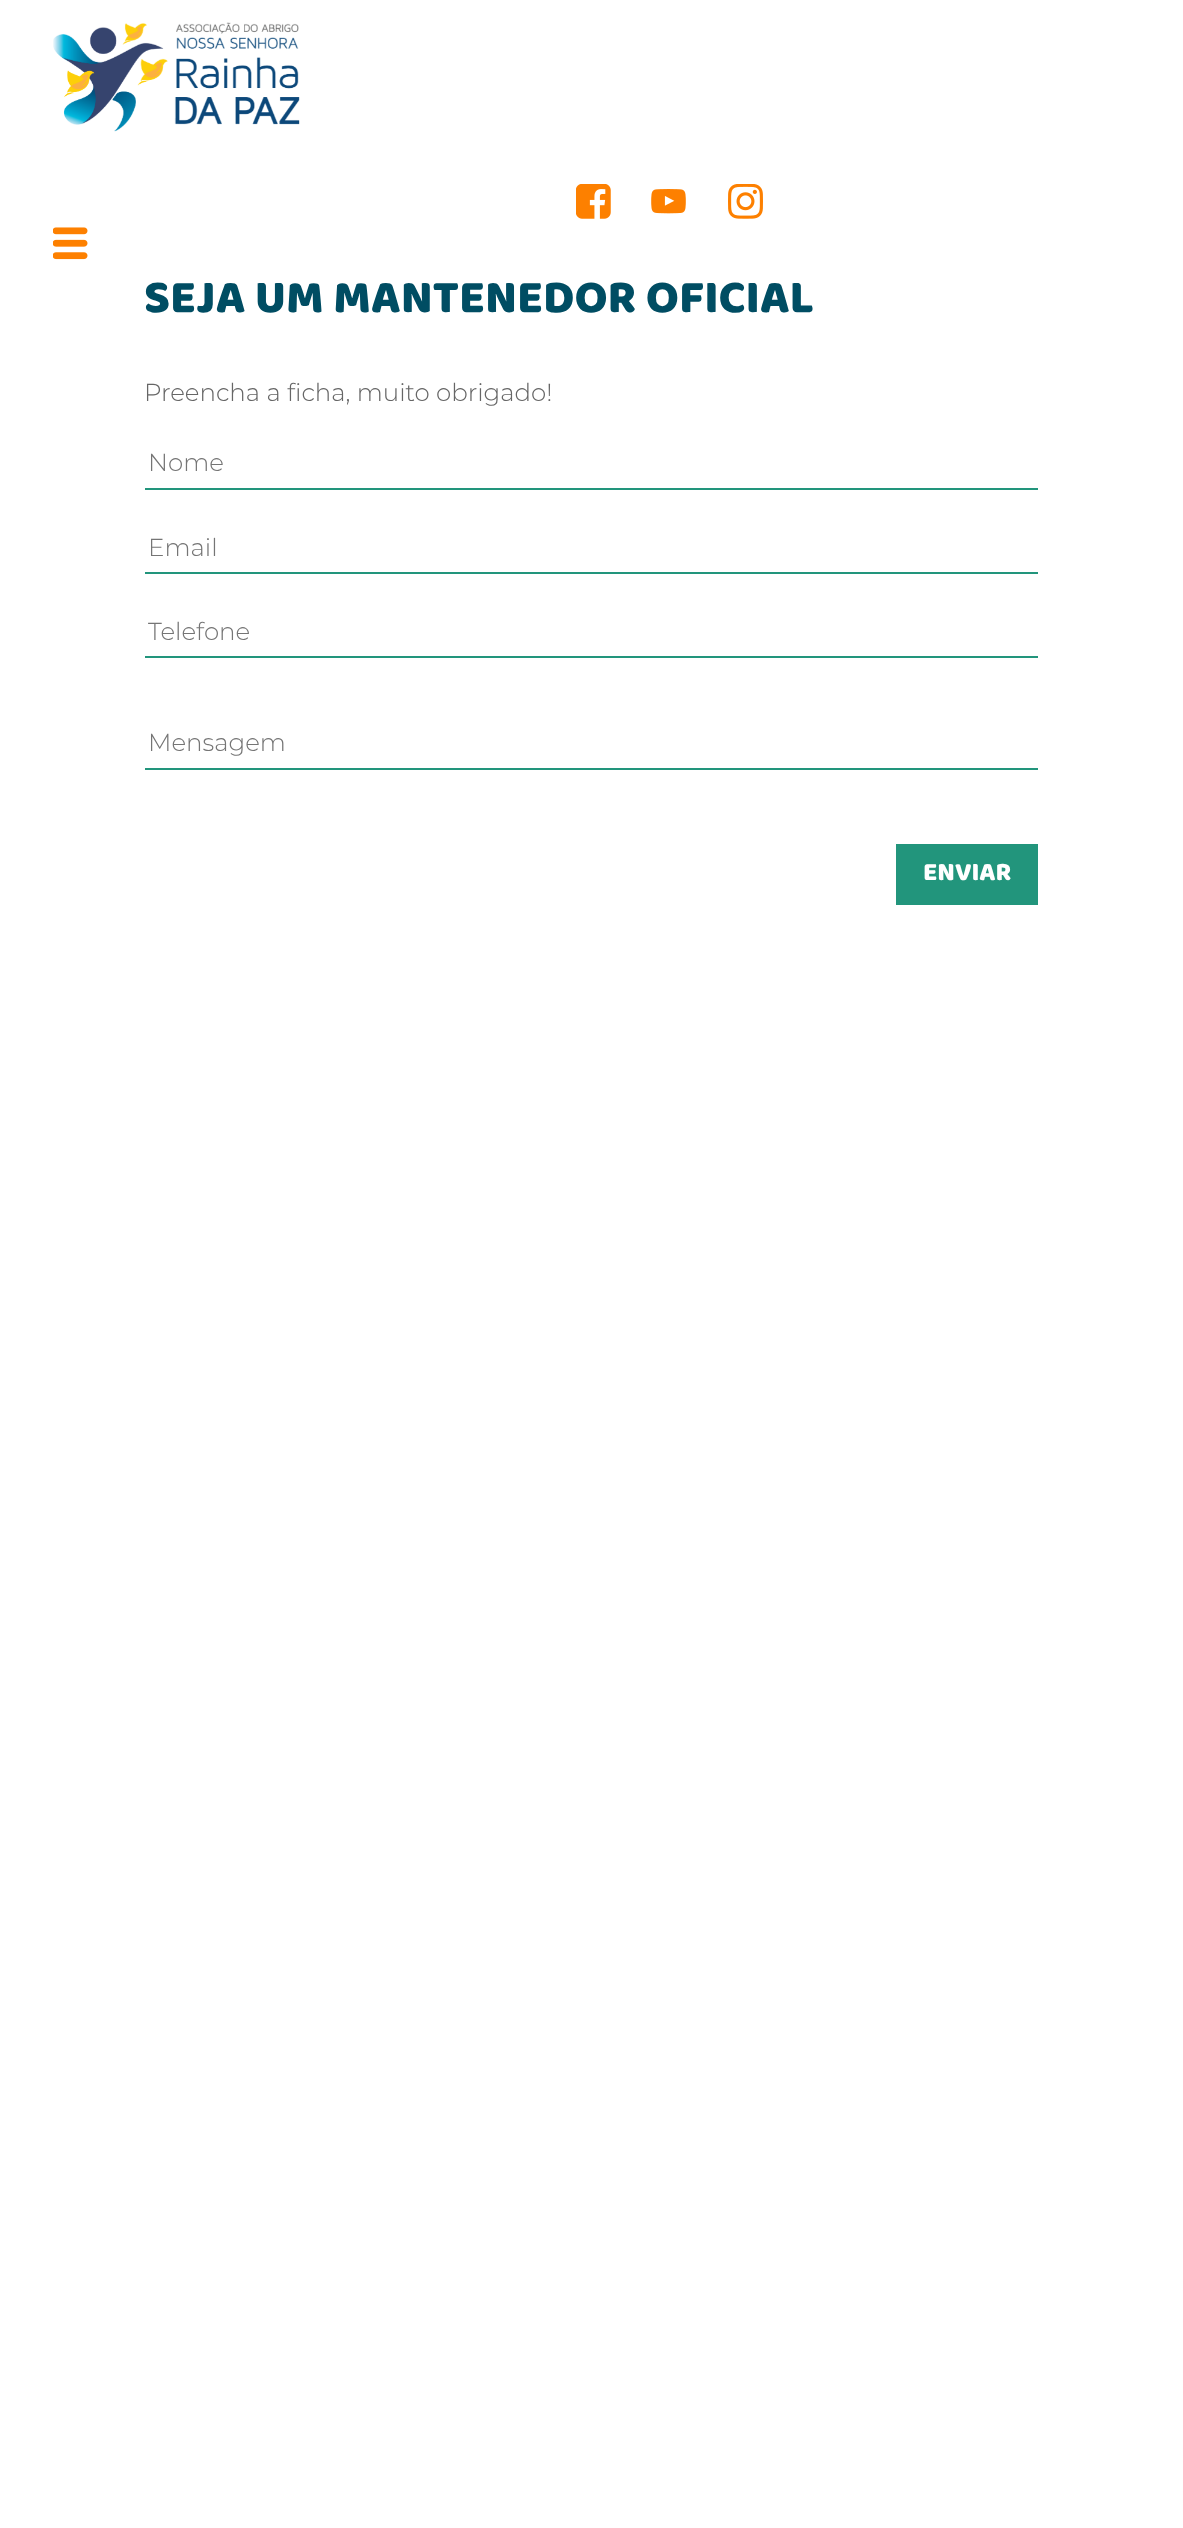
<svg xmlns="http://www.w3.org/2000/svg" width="1183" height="2528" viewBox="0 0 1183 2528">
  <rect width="100%" height="100%" fill="rgb(255,255,255)"/>
  <image x="53" y="22" width="247" height="110" href="pic1.png"/>
  <image x="576" y="184" width="35" height="35" href="pic2.png"/>
  <image x="651" y="189" width="35" height="25" href="pic3.png"/>
  <image x="728" y="184" width="35" height="35" href="pic4.png"/>
  <image x="53" y="227" width="35" height="33" href="pic5.png"/>
  <text x="144" y="312" font-family="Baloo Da" font-size="47.25" fill="rgb(0,77,99)">SEJA UM MANTENEDOR OFICIAL</text>
  <text x="144" y="401" font-family="Montserrat" font-size="24.5" font-weight="300" fill="rgb(102,102,102)">Preencha a ficha, muito obrigado!</text>
  <rect x="145" y="488" width="893" height="2" fill="rgb(34,149,124)"/>
  <text x="148" y="471" font-family="Montserrat" font-size="24.5" font-weight="300" fill="rgb(117,117,117)">Nome</text>
  <rect x="145" y="572" width="893" height="2" fill="rgb(34,149,124)"/>
  <text x="148" y="556" font-family="Montserrat" font-size="24.5" font-weight="300" fill="rgb(117,117,117)">Email</text>
  <rect x="145" y="656" width="893" height="2" fill="rgb(34,149,124)"/>
  <text x="148" y="640" font-family="Montserrat" font-size="24.5" font-weight="300" fill="rgb(117,117,117)">Telefone</text>
  <rect x="145" y="768" width="893" height="2" fill="rgb(34,149,124)"/>
  <text x="148" y="751" font-family="Montserrat" font-size="24.5" font-weight="300" fill="rgb(117,117,117)">Mensagem</text>
  <rect x="896" y="844" width="142" height="61" fill="rgb(34,149,124)"/>
  <text x="923" y="880" font-family="Baloo Da" font-size="26" fill="rgb(255,255,255)">ENVIAR</text>
</svg>
